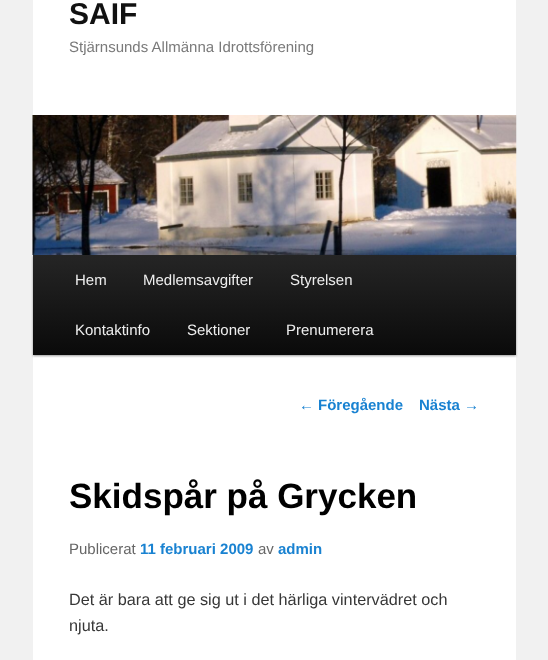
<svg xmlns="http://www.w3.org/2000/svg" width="548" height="660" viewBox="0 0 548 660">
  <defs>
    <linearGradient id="g1" gradientUnits="userSpaceOnUse" x1="274" y1="255" x2="274" y2="355"><stop offset="0" stop-color="rgb(37,37,37)"/><stop offset="1" stop-color="rgb(10,10,10)"/></linearGradient>
  </defs>
  <rect width="100%" height="100%" fill="rgb(241,241,241)"/>
  <rect x="33" y="0" width="483" height="660" fill="rgb(255,255,255)"/>
  <text x="69" y="24" font-family="Liberation Sans" font-size="30" font-weight="bold" fill="rgb(17,17,17)">SAIF</text>
  <text x="69" y="52" font-family="Liberation Sans" font-size="15" fill="rgb(122,122,122)">Stjärnsunds Allmänna Idrottsförening</text>
  <rect x="33" y="256" width="483" height="100" fill="rgba(0,0,0,0.4)" filter="blur(1px)"/>
  <image x="32" y="115" width="485" height="140" href="pic1.png"/>
  <rect x="33" y="255" width="483" height="100" fill="url(#g1)"/>
  <g font-family="Liberation Sans" font-size="15" fill="rgb(238,238,238)">
    <text x="75" y="285">Hem</text>
    <text x="143" y="285">Medlemsavgifter</text>
    <text x="290" y="285">Styrelsen</text>
    <text x="75" y="335">Kontaktinfo</text>
    <text x="187" y="335">Sektioner</text>
    <text x="286" y="335">Prenumerera</text>
  </g>
  <text x="299" y="410" font-family="Liberation Sans" font-size="15" fill="rgb(25,130,209)">←</text>
  <g font-family="Liberation Sans" font-size="15" font-weight="bold" fill="rgb(25,130,209)">
    <text x="318" y="410">Föregående</text>
    <text x="419" y="410">Nästa</text>
  </g>
  <text x="464" y="410" font-family="Liberation Sans" font-size="15" fill="rgb(25,130,209)">→</text>
  <text x="69" y="508" font-family="Liberation Sans" font-size="35" font-weight="bold" fill="rgb(0,0,0)">Skidspår på Grycken</text>
  <text x="69" y="554" font-family="Liberation Sans" font-size="15" fill="rgb(102,102,102)">Publicerat</text>
  <text x="140" y="554" font-family="Liberation Sans" font-size="15" font-weight="bold" fill="rgb(25,130,209)">11 februari 2009</text>
  <text x="258" y="554" font-family="Liberation Sans" font-size="15" fill="rgb(102,102,102)">av</text>
  <text x="278" y="554" font-family="Liberation Sans" font-size="15" font-weight="bold" fill="rgb(25,130,209)">admin</text>
  <g font-family="Liberation Sans" font-size="16.25" fill="rgb(55,55,55)">
    <text>
      <tspan x="69" y="605">Det är bara att ge sig ut i det härliga vintervädret och</tspan>
      <tspan x="69" y="631">njuta.</tspan>
    </text>
  </g>
</svg>
